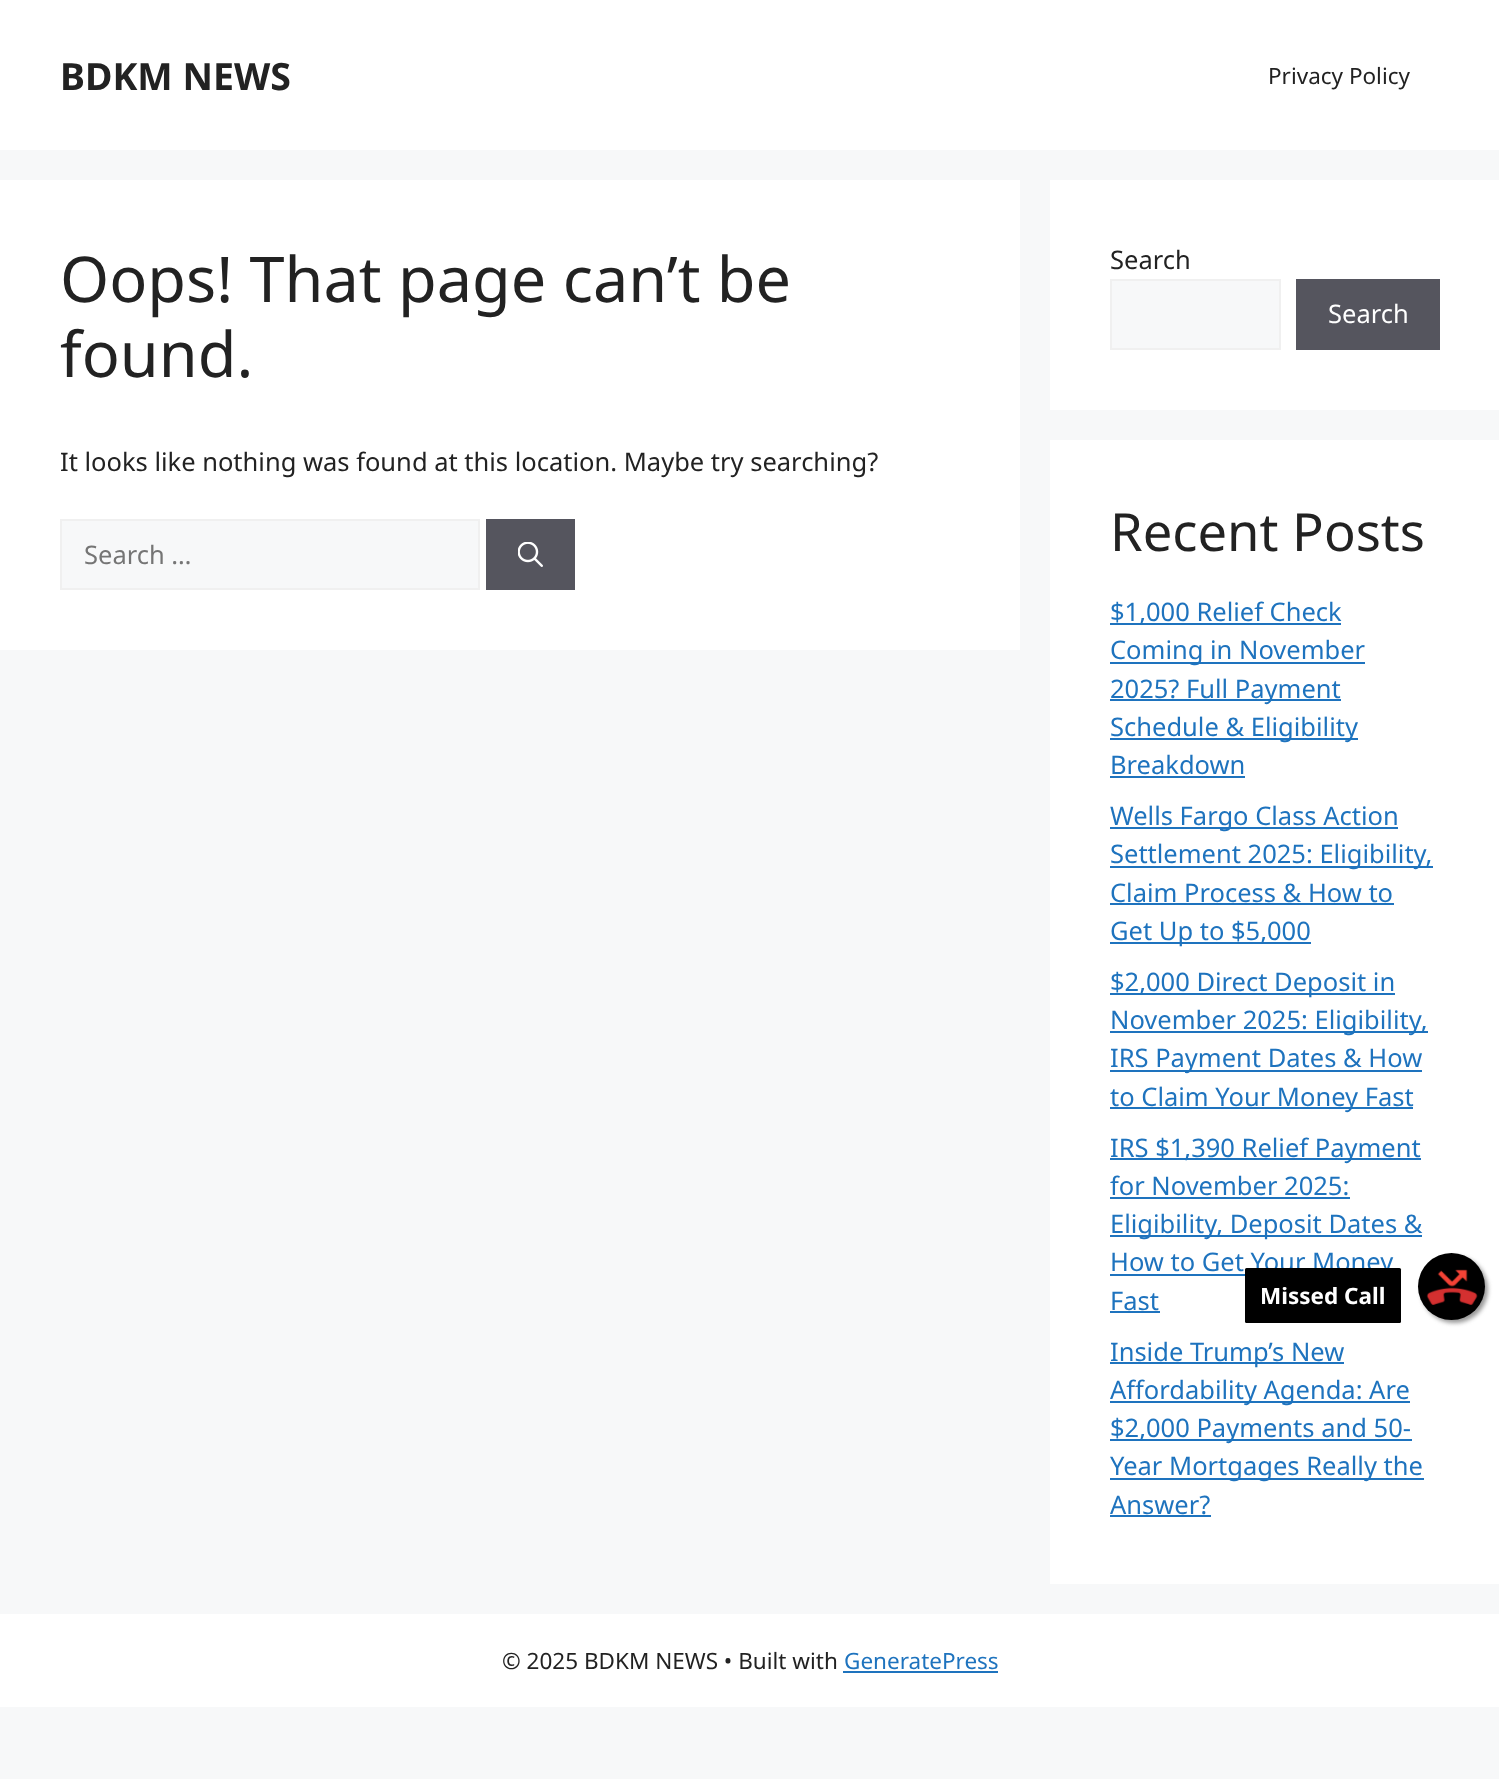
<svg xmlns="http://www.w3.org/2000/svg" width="1499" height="1779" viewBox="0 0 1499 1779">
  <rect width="100%" height="100%" fill="rgb(247,248,249)"/>
  <rect x="0" y="0" width="1499" height="150" fill="rgb(255,255,255)"/>
  <text x="60" y="90" font-family="Noto Sans" font-size="37.5" font-weight="bold" fill="rgb(34,34,34)">BDKM NEWS</text>
  <text x="1268" y="84" font-family="Noto Sans" font-size="22.5" fill="rgb(34,34,34)">Privacy Policy</text>
  <rect x="0" y="180" width="1020" height="470" fill="rgb(255,255,255)"/>
  <g font-family="Noto Sans" font-size="63" fill="rgb(34,34,34)">
    <text>
      <tspan x="60" y="302">Oops! That page can’t be</tspan>
      <tspan x="60" y="377">found.</tspan>
    </text>
  </g>
  <text x="60" y="471" font-family="Noto Sans" font-size="25.5" fill="rgb(34,34,34)">It looks like nothing was found at this location. Maybe try searching?</text>
  <rect x="61" y="520" width="418" height="69" fill="rgb(247,248,249)" stroke="rgb(240,240,240)" stroke-width="2"/>
  <text x="84" y="564" font-family="Noto Sans" font-size="25.5" fill="rgb(117,117,117)">Search …</text>
  <rect x="486" y="519" width="89" height="71" fill="rgb(85,85,94)"/>
  <image x="518" y="542" width="25" height="25" href="pic1.png"/>
  <rect x="1050" y="180" width="449" height="230" fill="rgb(255,255,255)"/>
  <text x="1110" y="269" font-family="Noto Sans" font-size="25.5" fill="rgb(34,34,34)">Search</text>
  <rect x="1111" y="280" width="169" height="69" fill="rgb(247,248,249)" stroke="rgb(240,240,240)" stroke-width="2"/>
  <rect x="1296" y="279" width="144" height="71" fill="rgb(85,85,94)"/>
  <text x="1328" y="323" font-family="Noto Sans" font-size="25.5" fill="rgb(255,255,255)">Search</text>
  <rect x="1050" y="440" width="449" height="1144" fill="rgb(255,255,255)"/>
  <text x="1110" y="551" font-family="Noto Sans" font-size="52.5" fill="rgb(34,34,34)">Recent Posts</text>
  <rect x="1110" y="623" width="231" height="2" fill="rgb(30,115,190)"/>
  <text x="1110" y="621" font-family="Noto Sans" font-size="25.5" fill="rgb(30,115,190)">$1,000 Relief Check</text>
  <rect x="1110" y="662" width="255" height="2" fill="rgb(30,115,190)"/>
  <text x="1110" y="659" font-family="Noto Sans" font-size="25.5" fill="rgb(30,115,190)">Coming in November</text>
  <rect x="1110" y="699" width="231" height="2" fill="rgb(30,115,190)"/>
  <text x="1110" y="698" font-family="Noto Sans" font-size="25.5" fill="rgb(30,115,190)">2025? Full Payment</text>
  <rect x="1110" y="738" width="248" height="2" fill="rgb(30,115,190)"/>
  <g font-family="Noto Sans" font-size="25.5" fill="rgb(30,115,190)">
    <text>
      <tspan x="1110" y="736">Schedule &amp; Eligibility</tspan>
      <tspan x="1110" y="774">Breakdown</tspan>
    </text>
  </g>
  <rect x="1110" y="776" width="135" height="2" fill="rgb(30,115,190)"/>
  <rect x="1110" y="827" width="288" height="2" fill="rgb(30,115,190)"/>
  <text x="1110" y="825" font-family="Noto Sans" font-size="25.5" fill="rgb(30,115,190)">Wells Fargo Class Action</text>
  <rect x="1110" y="866" width="323" height="2" fill="rgb(30,115,190)"/>
  <g font-family="Noto Sans" font-size="25.5" fill="rgb(30,115,190)">
    <text>
      <tspan x="1110" y="863">Settlement 2025: Eligibility,</tspan>
      <tspan x="1110" y="902">Claim Process &amp; How to</tspan>
    </text>
  </g>
  <rect x="1110" y="903" width="284" height="2" fill="rgb(30,115,190)"/>
  <rect x="1110" y="942" width="201" height="2" fill="rgb(30,115,190)"/>
  <text x="1110" y="940" font-family="Noto Sans" font-size="25.5" fill="rgb(30,115,190)">Get Up to $5,000</text>
  <rect x="1110" y="993" width="285" height="2" fill="rgb(30,115,190)"/>
  <text x="1110" y="991" font-family="Noto Sans" font-size="25.5" fill="rgb(30,115,190)">$2,000 Direct Deposit in</text>
  <rect x="1110" y="1031" width="318" height="2" fill="rgb(30,115,190)"/>
  <text x="1110" y="1029" font-family="Noto Sans" font-size="25.5" fill="rgb(30,115,190)">November 2025: Eligibility,</text>
  <rect x="1110" y="1070" width="312" height="2" fill="rgb(30,115,190)"/>
  <text x="1110" y="1067" font-family="Noto Sans" font-size="25.5" fill="rgb(30,115,190)">IRS Payment Dates &amp; How</text>
  <rect x="1110" y="1107" width="303" height="2" fill="rgb(30,115,190)"/>
  <text x="1110" y="1106" font-family="Noto Sans" font-size="25.5" fill="rgb(30,115,190)">to Claim Your Money Fast</text>
  <rect x="1110" y="1158" width="311" height="2" fill="rgb(30,115,190)"/>
  <g font-family="Noto Sans" font-size="25.5" fill="rgb(30,115,190)">
    <text>
      <tspan x="1110" y="1157">IRS $1,390 Relief Payment</tspan>
      <tspan x="1110" y="1195">for November 2025:</tspan>
    </text>
  </g>
  <rect x="1110" y="1197" width="240" height="2" fill="rgb(30,115,190)"/>
  <rect x="1110" y="1235" width="312" height="2" fill="rgb(30,115,190)"/>
  <text x="1110" y="1233" font-family="Noto Sans" font-size="25.5" fill="rgb(30,115,190)">Eligibility, Deposit Dates &amp;</text>
  <rect x="1110" y="1274" width="135" height="2" fill="rgb(30,115,190)"/>
  <g font-family="Noto Sans" font-size="25.5" fill="rgb(30,115,190)">
    <text>
      <tspan x="1110" y="1271">How to Get Your Money</tspan>
      <tspan x="1110" y="1310">Fast</tspan>
    </text>
  </g>
  <rect x="1110" y="1311" width="50" height="2" fill="rgb(30,115,190)"/>
  <rect x="1110" y="1362" width="234" height="2" fill="rgb(30,115,190)"/>
  <text x="1110" y="1361" font-family="Noto Sans" font-size="25.5" fill="rgb(30,115,190)">Inside Trump’s New</text>
  <rect x="1110" y="1401" width="300" height="2" fill="rgb(30,115,190)"/>
  <text x="1110" y="1399" font-family="Noto Sans" font-size="25.5" fill="rgb(30,115,190)">Affordability Agenda: Are</text>
  <rect x="1110" y="1439" width="302" height="2" fill="rgb(30,115,190)"/>
  <text x="1110" y="1437" font-family="Noto Sans" font-size="25.5" fill="rgb(30,115,190)">$2,000 Payments and 50-</text>
  <rect x="1110" y="1478" width="314" height="2" fill="rgb(30,115,190)"/>
  <g font-family="Noto Sans" font-size="25.5" fill="rgb(30,115,190)">
    <text>
      <tspan x="1110" y="1475">Year Mortgages Really the</tspan>
      <tspan x="1110" y="1514">Answer?</tspan>
    </text>
  </g>
  <rect x="1110" y="1515" width="101" height="2" fill="rgb(30,115,190)"/>
  <rect x="1421" y="1256" width="67" height="67" rx="33.5" fill="rgb(153,153,153)" filter="blur(2px)"/>
  <circle cx="1451.5" cy="1286.5" r="33.5" fill="rgb(0,0,0)"/>
  <rect x="1245" y="1268" width="156" height="55" rx="1.5" fill="rgb(0,0,0)"/>
  <text x="1260" y="1304" font-family="Noto Sans" font-size="22.5" font-weight="bold" fill="rgb(255,255,255)">Missed Call</text>
  <image x="1426" y="1269" width="52" height="36" href="pic2.png"/>
  <rect x="0" y="1614" width="1499" height="93" fill="rgb(255,255,255)"/>
  <text x="502" y="1669" font-family="Noto Sans" font-size="22.5" fill="rgb(34,34,34)">© 2025 BDKM NEWS • Built with</text>
  <text x="844" y="1669" font-family="Noto Sans" font-size="22.5" fill="rgb(30,115,190)">GeneratePress</text>
  <rect x="843" y="1671" width="155" height="2" fill="rgb(30,115,190)"/>
</svg>
